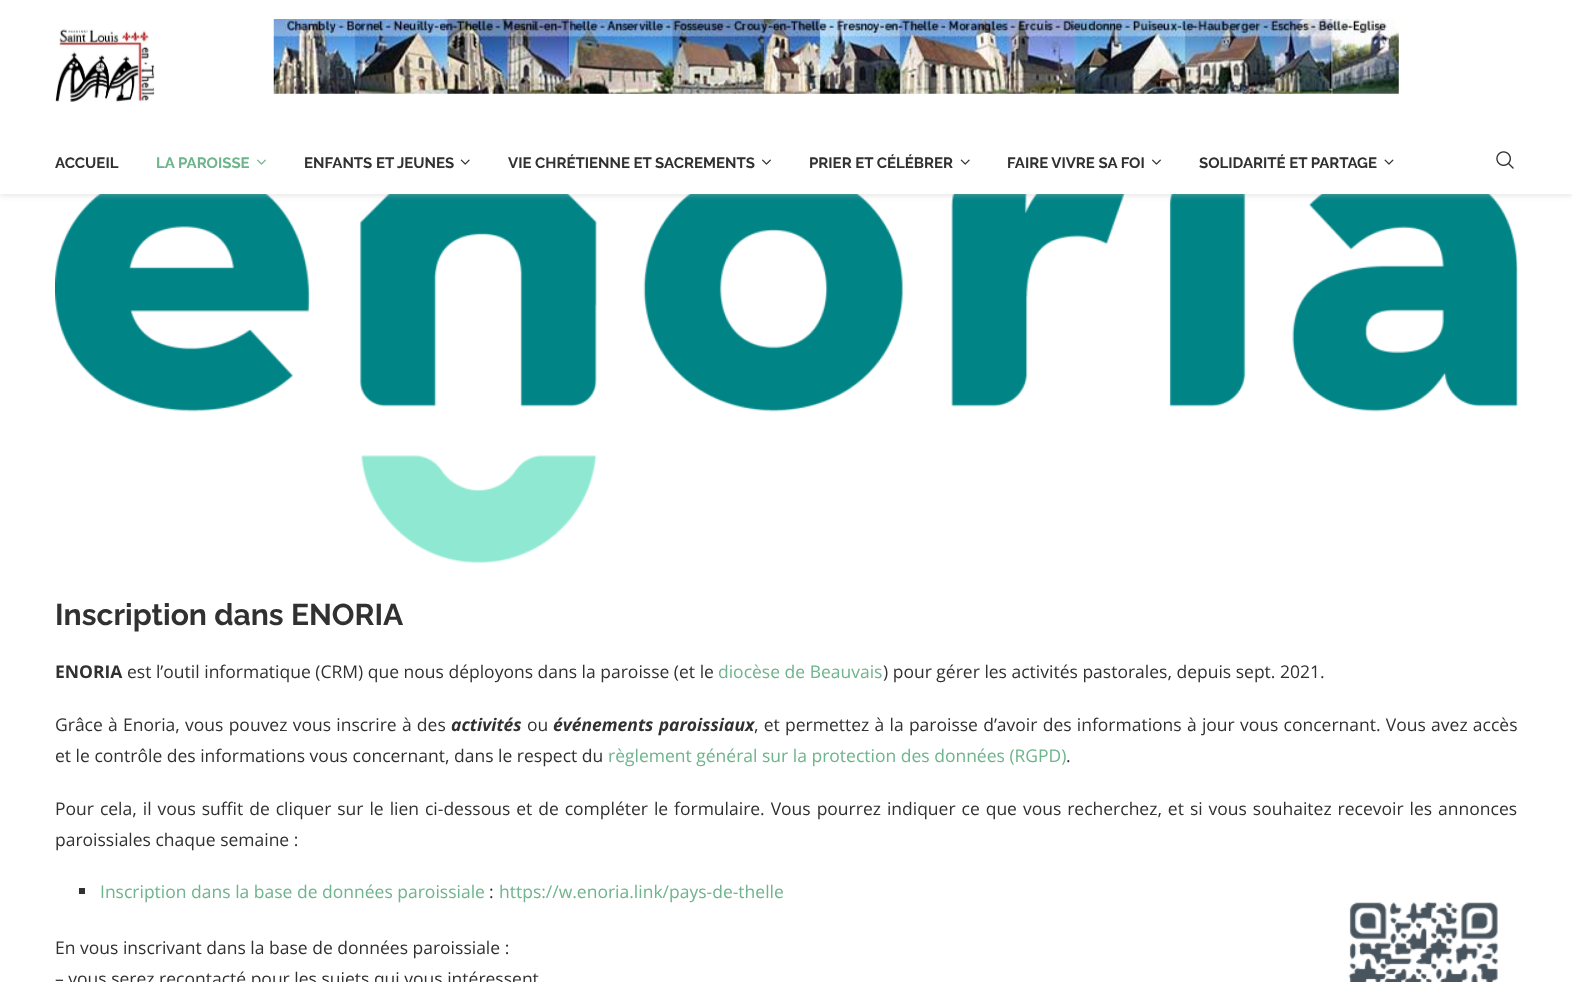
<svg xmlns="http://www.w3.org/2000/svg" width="1572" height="982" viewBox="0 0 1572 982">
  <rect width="100%" height="100%" fill="rgb(255,255,255)"/>
  <image x="55" y="194" width="1463" height="369" href="pic8.png"/>
  <rect x="0" y="1" width="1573" height="194" fill="rgba(190,190,190,0.46)" filter="blur(3px)"/>
  <rect x="0" y="0" width="1572" height="194" fill="rgb(255,255,255)"/>
  <image x="55" y="29" width="100" height="73" href="pic1.png"/>
  <image x="273" y="19" width="1126" height="75" href="pic2.png"/>
  <text x="55" y="168" font-family="Raleway" font-size="15" font-weight="bold" fill="rgb(49,49,49)">ACCUEIL</text>
  <text x="156" y="168" font-family="Raleway" font-size="15" font-weight="bold" fill="rgb(110,180,140)">LA PAROISSE</text>
  <image x="257" y="159" width="9" height="6" href="pic3.png"/>
  <text x="304" y="168" font-family="Raleway" font-size="15" font-weight="bold" fill="rgb(49,49,49)">ENFANTS ET JEUNES</text>
  <image x="460" y="159" width="10" height="6" href="pic4.png"/>
  <text x="508" y="168" font-family="Raleway" font-size="15" font-weight="bold" fill="rgb(49,49,49)">VIE CHRÉTIENNE ET SACREMENTS</text>
  <image x="762" y="159" width="9" height="6" href="pic5.png"/>
  <text x="809" y="168" font-family="Raleway" font-size="15" font-weight="bold" fill="rgb(49,49,49)">PRIER ET CÉLÉBRER</text>
  <image x="960" y="159" width="10" height="6" href="pic4.png"/>
  <text x="1007" y="168" font-family="Raleway" font-size="15" font-weight="bold" fill="rgb(49,49,49)">FAIRE VIVRE SA FOI</text>
  <image x="1152" y="159" width="9" height="6" href="pic5.png"/>
  <text x="1199" y="168" font-family="Raleway" font-size="15" font-weight="bold" fill="rgb(49,49,49)">SOLIDARITÉ ET PARTAGE</text>
  <image x="1384" y="159" width="10" height="6" href="pic6.png"/>
  <image x="1496" y="151" width="18" height="18" href="pic7.png"/>
  <text x="55" y="625" font-family="Raleway" font-size="30" font-weight="bold" fill="rgb(49,49,49)">Inscription dans ENORIA</text>
  <text x="55" y="678" font-family="Open Sans" font-size="17.5" font-weight="bold" fill="rgb(49,49,49)">ENORIA</text>
  <text x="127" y="678" font-family="Open Sans" font-size="17.5" fill="rgb(49,49,49)">est l’outil informatique (CRM) que nous déployons dans la paroisse (et le</text>
  <text x="718" y="678" font-family="Open Sans" font-size="17.5" fill="rgb(110,180,140)">diocèse de Beauvais</text>
  <g font-family="Open Sans" font-size="17.5" fill="rgb(49,49,49)">
    <text x="883" y="678">) pour gérer les activités pastorales, depuis sept. 2021.</text>
    <text x="55" y="731" word-spacing="0.7">Grâce à Enoria, vous pouvez vous inscrire à des</text>
  </g>
  <text x="451" y="731" font-family="Open Sans" font-size="17.5" font-weight="bold" font-style="italic" fill="rgb(49,49,49)">activités</text>
  <text x="527" y="731" font-family="Open Sans" font-size="17.5" fill="rgb(49,49,49)">ou</text>
  <text x="553" y="731" word-spacing="0.7" font-family="Open Sans" font-size="17.5" font-weight="bold" font-style="italic" fill="rgb(49,49,49)">événements paroissiaux</text>
  <g font-family="Open Sans" font-size="17.5" fill="rgb(49,49,49)">
    <text x="754" y="731" word-spacing="0.7">, et permettez à la paroisse d’avoir des informations à jour vous concernant. Vous avez accès</text>
    <text x="55" y="762">et le contrôle des informations vous concernant, dans le respect du</text>
  </g>
  <text x="608" y="762" font-family="Open Sans" font-size="17.5" fill="rgb(110,180,140)">règlement général sur la protection des données (RGPD)</text>
  <g font-family="Open Sans" font-size="17.5" fill="rgb(49,49,49)">
    <text x="1066" y="762">.</text>
    <text>
      <tspan x="55" y="815" word-spacing="1.4">Pour cela, il vous suffit de cliquer sur le lien ci-dessous et de compléter le formulaire. Vous pourrez indiquer ce que vous recherchez, et si vous souhaitez recevoir les annonces</tspan>
      <tspan x="55" y="846">paroissiales chaque semaine :</tspan>
    </text>
  </g>
  <rect x="79" y="888" width="6" height="6" fill="rgb(49,49,49)"/>
  <text x="100" y="898" font-family="Open Sans" font-size="17.5" fill="rgb(110,180,140)">Inscription dans la base de données paroissiale</text>
  <text x="489" y="898" font-family="Open Sans" font-size="17.5" fill="rgb(49,49,49)">:</text>
  <text x="499" y="898" font-family="Open Sans" font-size="17.5" fill="rgb(110,180,140)">https://w.enoria.link/pays-de-thelle</text>
  <image x="1348" y="901" width="150" height="81" href="pic9.png"/>
  <g font-family="Open Sans" font-size="17.5" fill="rgb(49,49,49)">
    <text>
      <tspan x="55" y="954">En vous inscrivant dans la base de données paroissiale :</tspan>
      <tspan x="55" y="985">– vous serez recontacté pour les sujets qui vous intéressent</tspan>
    </text>
  </g>
</svg>
